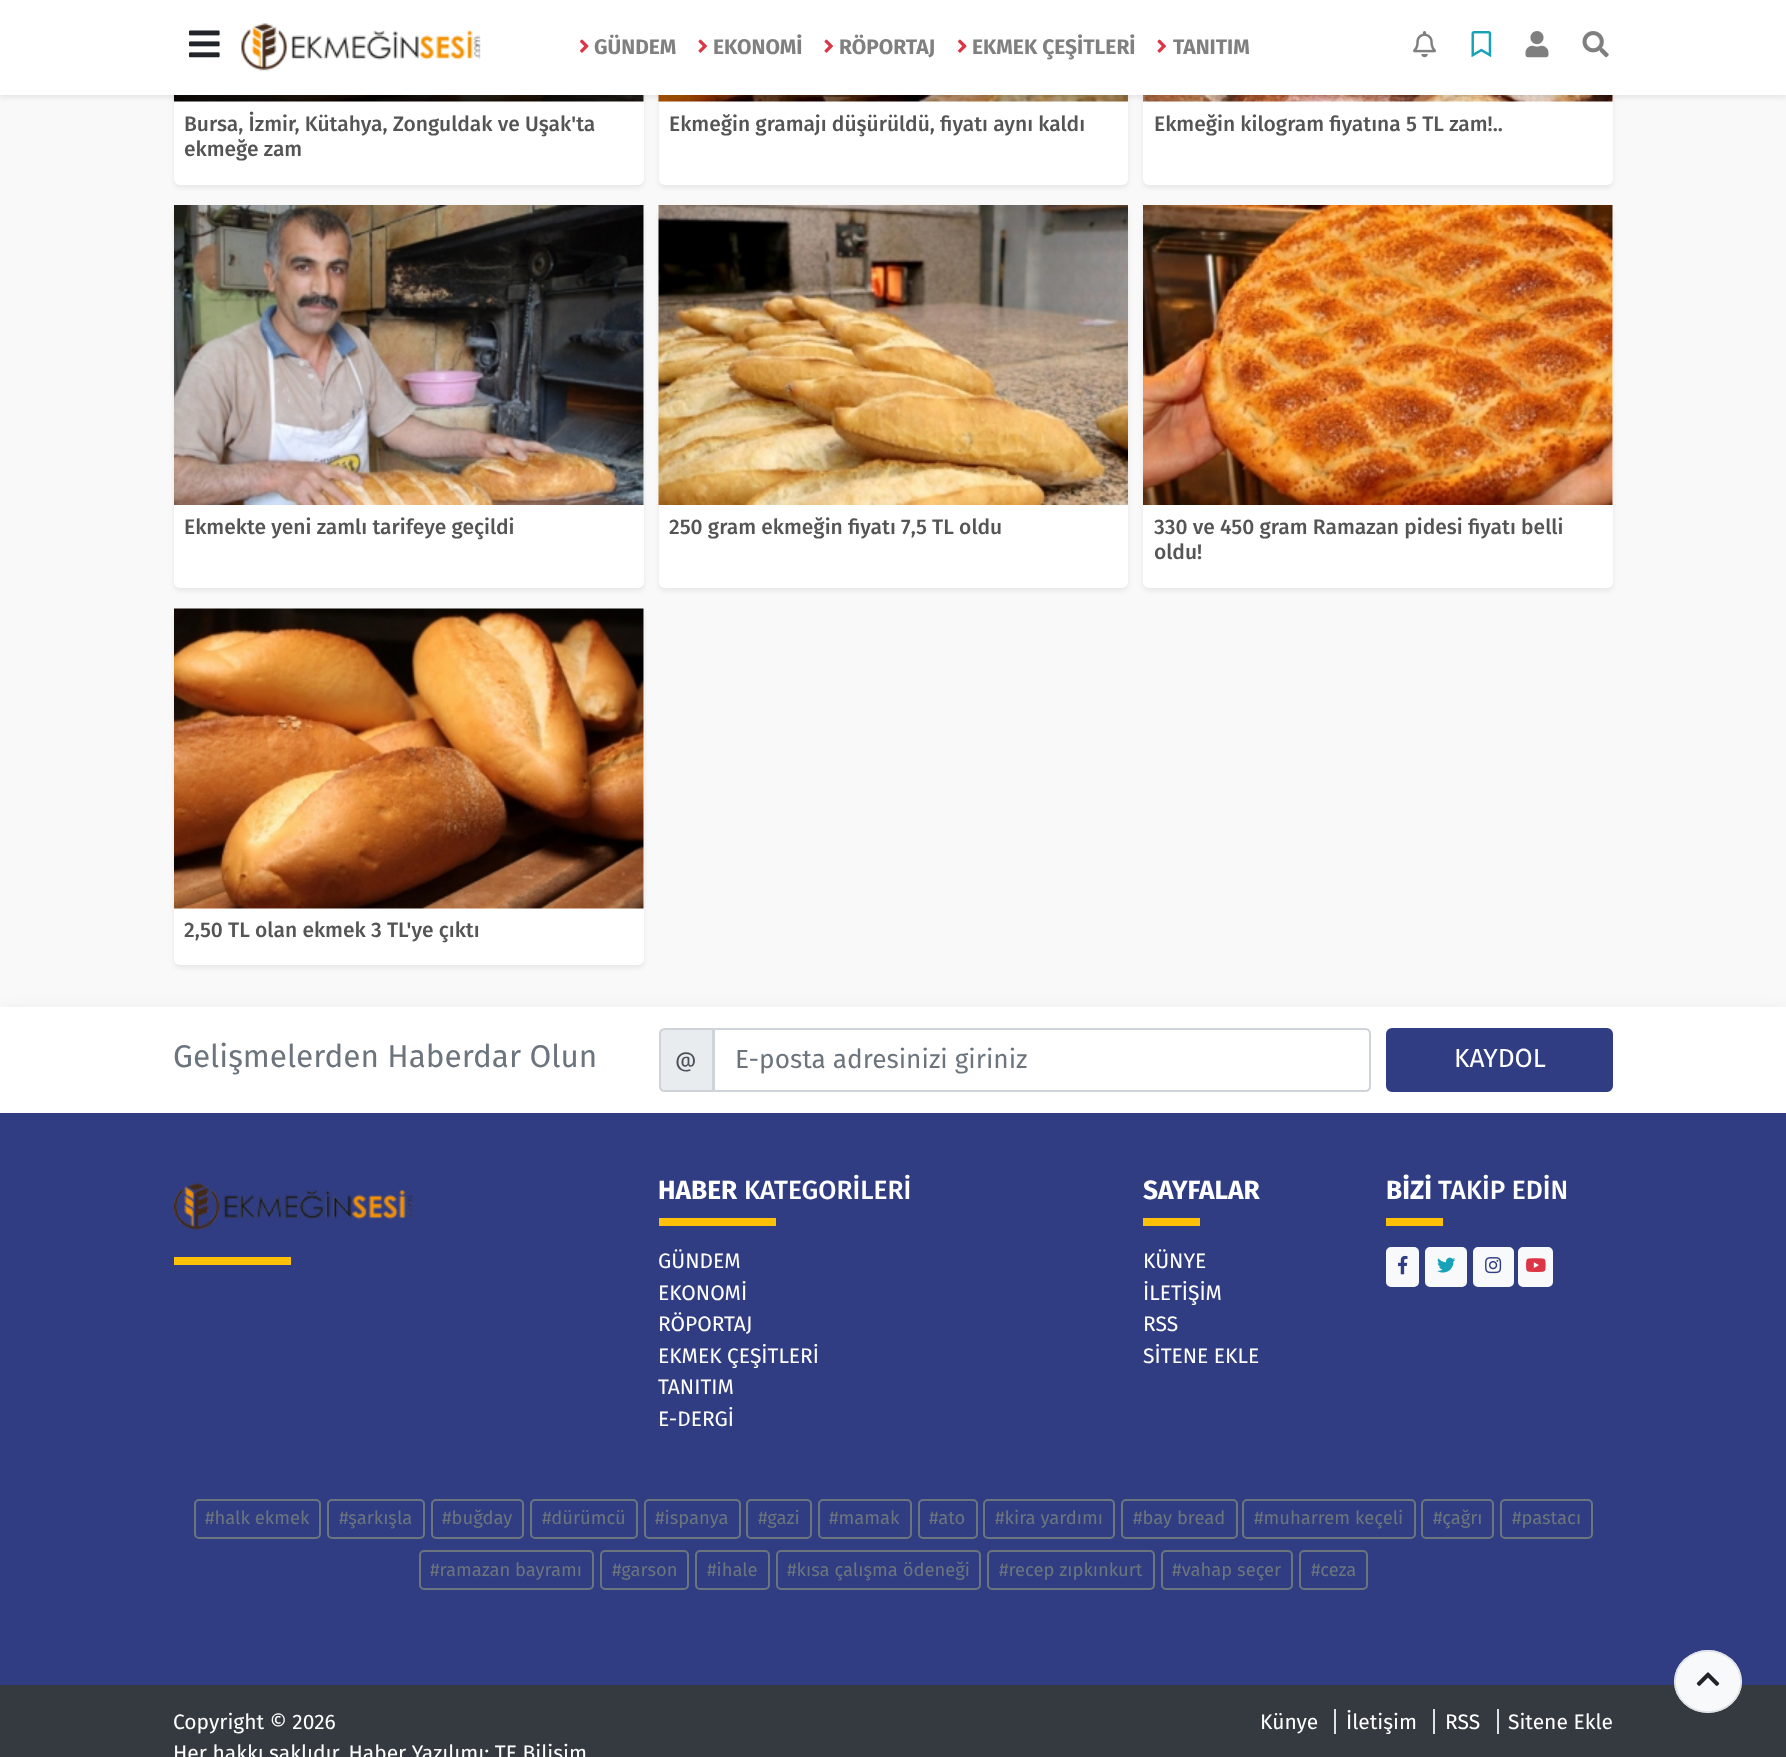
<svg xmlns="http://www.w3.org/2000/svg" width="1786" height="1757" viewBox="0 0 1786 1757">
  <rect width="100%" height="100%" fill="rgb(249,249,249)"/>
  <rect x="174" y="-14" width="470" height="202" rx="6" fill="rgba(0,0,0,0.07)" filter="blur(2.5px)"/>
  <rect x="174" y="-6" width="470" height="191" rx="6" fill="rgb(255,255,255)"/>
  <image x="174" y="95" width="470" height="7" href="pic9.png"/>
  <rect x="659" y="-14" width="469" height="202" rx="6" fill="rgba(0,0,0,0.07)" filter="blur(2.5px)"/>
  <rect x="659" y="-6" width="469" height="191" rx="6" fill="rgb(255,255,255)"/>
  <image x="658" y="95" width="470" height="7" href="pic10.png"/>
  <rect x="1143" y="-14" width="470" height="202" rx="6" fill="rgba(0,0,0,0.07)" filter="blur(2.5px)"/>
  <rect x="1143" y="-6" width="470" height="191" rx="6" fill="rgb(255,255,255)"/>
  <image x="1143" y="95" width="470" height="7" href="pic11.png"/>
  <rect x="0" y="3" width="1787" height="95" fill="rgba(0,0,0,0.07)" filter="blur(2.5px)"/>
  <rect x="0" y="0" width="1786" height="95" fill="rgb(255,255,255)"/>
  <image x="189" y="30" width="31" height="28" href="pic1.png"/>
  <image x="241" y="23" width="240" height="48" href="pic2.png"/>
  <image x="580" y="39" width="9" height="14" href="pic3.png"/>
  <text x="594" y="54" font-family="Fira Sans" font-size="21" font-weight="bold" fill="rgb(128,128,128)">GÜNDEM</text>
  <image x="698" y="39" width="9" height="14" href="pic4.png"/>
  <text x="713" y="54" font-family="Fira Sans" font-size="21" font-weight="bold" fill="rgb(128,128,128)">EKONOMİ</text>
  <image x="824" y="39" width="9" height="14" href="pic4.png"/>
  <text x="839" y="54" font-family="Fira Sans" font-size="21" font-weight="bold" fill="rgb(128,128,128)">RÖPORTAJ</text>
  <image x="958" y="39" width="9" height="14" href="pic3.png"/>
  <text x="972" y="54" font-family="Fira Sans" font-size="21" font-weight="bold" fill="rgb(128,128,128)">EKMEK ÇEŞİTLERİ</text>
  <image x="1157" y="39" width="9" height="14" href="pic4.png"/>
  <text x="1173" y="54" font-family="Fira Sans" font-size="21" font-weight="bold" fill="rgb(128,128,128)">TANITIM</text>
  <image x="1413" y="31" width="23" height="27" href="pic5.png"/>
  <image x="1471" y="31" width="21" height="27" href="pic6.png"/>
  <image x="1525" y="31" width="24" height="27" href="pic7.png"/>
  <image x="1582" y="31" width="27" height="27" href="pic8.png"/>
  <g font-family="Fira Sans" font-size="21" font-weight="500" fill="rgb(85,85,85)">
    <text>
      <tspan x="184" y="131">Bursa, İzmir, Kütahya, Zonguldak ve Uşak'ta</tspan>
      <tspan x="184" y="156">ekmeğe zam</tspan>
    </text>
    <text x="669" y="131">Ekmeğin gramajı düşürüldü, fiyatı aynı kaldı</text>
    <text x="1154" y="131">Ekmeğin kilogram fiyatına 5 TL zam!..</text>
  </g>
  <rect x="174" y="209" width="470" height="382" rx="6" fill="rgba(0,0,0,0.07)" filter="blur(2.5px)"/>
  <rect x="174" y="206" width="470" height="382" rx="6" fill="rgb(255,255,255)"/>
  <image x="174" y="205" width="470" height="300" href="pic12.png"/>
  <text x="184" y="534" font-family="Fira Sans" font-size="21" font-weight="500" fill="rgb(85,85,85)">Ekmekte yeni zamlı tarifeye geçildi</text>
  <rect x="659" y="209" width="469" height="382" rx="6" fill="rgba(0,0,0,0.07)" filter="blur(2.5px)"/>
  <rect x="659" y="206" width="469" height="382" rx="6" fill="rgb(255,255,255)"/>
  <image x="658" y="205" width="470" height="300" href="pic13.png"/>
  <text x="669" y="534" font-family="Fira Sans" font-size="21" font-weight="500" fill="rgb(85,85,85)">250 gram ekmeğin fiyatı 7,5 TL oldu</text>
  <rect x="1143" y="209" width="470" height="382" rx="6" fill="rgba(0,0,0,0.07)" filter="blur(2.5px)"/>
  <rect x="1143" y="206" width="470" height="382" rx="6" fill="rgb(255,255,255)"/>
  <image x="1143" y="205" width="470" height="300" href="pic14.png"/>
  <g font-family="Fira Sans" font-size="21" font-weight="500" fill="rgb(85,85,85)">
    <text>
      <tspan x="1154" y="534">330 ve 450 gram Ramazan pidesi fiyatı belli</tspan>
      <tspan x="1154" y="559">oldu!</tspan>
    </text>
  </g>
  <rect x="174" y="612" width="470" height="356" rx="6" fill="rgba(0,0,0,0.07)" filter="blur(2.5px)"/>
  <rect x="174" y="609" width="470" height="356" rx="6" fill="rgb(255,255,255)"/>
  <image x="174" y="608" width="470" height="301" href="pic15.png"/>
  <text x="184" y="937" font-family="Fira Sans" font-size="21" font-weight="500" fill="rgb(85,85,85)">2,50 TL olan ekmek 3 TL'ye çıktı</text>
  <rect x="0" y="1017" width="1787" height="107" fill="rgba(0,0,0,0.15)" filter="blur(10.5px)"/>
  <rect x="0" y="1007" width="1786" height="106" fill="rgb(255,255,255)"/>
  <text x="173" y="1067" font-family="Fira Sans" font-size="31.5" fill="rgb(108,117,125)">Gelişmelerden Haberdar Olun</text>
  <path d="M665 1029H713V1091H665C662 1091 660 1089 660 1086V1034C660 1031 662 1029 665 1029Z" fill="rgb(233,236,239)" stroke="rgb(206,212,218)" stroke-width="2"/>
  <text x="675" y="1067" font-family="Fira Sans" font-size="21" fill="rgb(73,80,87)">@</text>
  <path d="M714 1029H1365C1368 1029 1370 1031 1370 1034V1086C1370 1089 1368 1091 1365 1091H714Z" fill="none" stroke="rgb(206,212,218)" stroke-width="2"/>
  <text x="735" y="1068" font-family="Fira Sans" font-size="26.25" fill="rgb(108,117,125)">E-posta adresinizi giriniz</text>
  <rect x="1387" y="1029" width="225" height="62" rx="5" fill="rgb(48,61,131)" stroke="rgb(48,61,131)" stroke-width="2"/>
  <text x="1454" y="1067" font-family="Fira Sans" font-size="26.25" fill="rgb(255,255,255)">KAYDOL</text>
  <rect x="0" y="1113" width="1786" height="572" fill="rgb(48,61,131)"/>
  <image x="174" y="1182" width="239" height="48" href="pic16.png"/>
  <rect x="174" y="1257" width="117" height="8" fill="rgb(255,193,7)"/>
  <text x="658" y="1199" font-family="Fira Sans" font-size="26.25" font-weight="bold" fill="rgb(255,255,255)">HABER</text>
  <text x="744" y="1199" font-family="Fira Sans" font-size="26.25" font-weight="500" fill="rgb(255,255,255)">KATEGORİLERİ</text>
  <rect x="659" y="1218" width="117" height="8" fill="rgb(255,193,7)"/>
  <g font-family="Fira Sans" font-size="21" fill="rgb(255,255,255)">
    <text>
      <tspan x="658" y="1268">GÜNDEM</tspan>
      <tspan x="658" y="1300">EKONOMİ</tspan>
      <tspan x="658" y="1331">RÖPORTAJ</tspan>
      <tspan x="658" y="1363">EKMEK ÇEŞİTLERİ</tspan>
      <tspan x="658" y="1394">TANITIM</tspan>
      <tspan x="658" y="1426">E-DERGİ</tspan>
    </text>
  </g>
  <text x="1143" y="1199" font-family="Fira Sans" font-size="26.25" font-weight="bold" fill="rgb(255,255,255)">SAYFALAR</text>
  <rect x="1143" y="1218" width="57" height="8" fill="rgb(255,193,7)"/>
  <g font-family="Fira Sans" font-size="21" fill="rgb(255,255,255)">
    <text>
      <tspan x="1143" y="1268">KÜNYE</tspan>
      <tspan x="1143" y="1300">İLETİŞİM</tspan>
      <tspan x="1143" y="1331">RSS</tspan>
      <tspan x="1143" y="1363">SİTENE EKLE</tspan>
    </text>
  </g>
  <text x="1386" y="1199" font-family="Fira Sans" font-size="26.25" font-weight="bold" fill="rgb(255,255,255)">BİZİ</text>
  <text x="1438" y="1199" font-family="Fira Sans" font-size="26.25" font-weight="500" fill="rgb(255,255,255)">TAKİP EDİN</text>
  <rect x="1386" y="1218" width="57" height="8" fill="rgb(255,193,7)"/>
  <rect x="1387" y="1248" width="31" height="38" rx="4" fill="rgb(248,249,250)" stroke="rgb(248,249,250)" stroke-width="2"/>
  <image x="1398" y="1255" width="10" height="20" href="pic17.png"/>
  <rect x="1426" y="1248" width="40" height="38" rx="4" fill="rgb(248,249,250)" stroke="rgb(248,249,250)" stroke-width="2"/>
  <image x="1437" y="1257" width="19" height="16" href="pic18.png"/>
  <rect x="1474" y="1248" width="39" height="38" rx="4" fill="rgb(248,249,250)" stroke="rgb(248,249,250)" stroke-width="2"/>
  <image x="1485" y="1257" width="17" height="17" href="pic19.png"/>
  <rect x="1519" y="1248" width="33" height="38" rx="4" fill="rgb(248,249,250)" stroke="rgb(248,249,250)" stroke-width="2"/>
  <image x="1526" y="1258" width="20" height="14" href="pic20.png"/>
  <rect x="195" y="1500" width="125" height="38" rx="4" fill="none" stroke="rgb(108,117,125)" stroke-width="2"/>
  <text x="205" y="1524" font-family="Fira Sans" font-size="18.4" fill="rgb(108,117,125)">#halk ekmek</text>
  <rect x="328" y="1500" width="96" height="38" rx="4" fill="none" stroke="rgb(108,117,125)" stroke-width="2"/>
  <text x="339" y="1524" font-family="Fira Sans" font-size="18.4" fill="rgb(108,117,125)">#şarkışla</text>
  <rect x="432" y="1500" width="91" height="38" rx="4" fill="none" stroke="rgb(108,117,125)" stroke-width="2"/>
  <text x="442" y="1524" font-family="Fira Sans" font-size="18.4" fill="rgb(108,117,125)">#buğday</text>
  <rect x="531" y="1500" width="106" height="38" rx="4" fill="none" stroke="rgb(108,117,125)" stroke-width="2"/>
  <text x="542" y="1524" font-family="Fira Sans" font-size="18.4" fill="rgb(108,117,125)">#dürümcü</text>
  <rect x="645" y="1500" width="95" height="38" rx="4" fill="none" stroke="rgb(108,117,125)" stroke-width="2"/>
  <text x="655" y="1524" font-family="Fira Sans" font-size="18.4" fill="rgb(108,117,125)">#ispanya</text>
  <rect x="747" y="1500" width="64" height="38" rx="4" fill="none" stroke="rgb(108,117,125)" stroke-width="2"/>
  <text x="758" y="1524" font-family="Fira Sans" font-size="18.4" fill="rgb(108,117,125)">#gazi</text>
  <rect x="819" y="1500" width="92" height="38" rx="4" fill="none" stroke="rgb(108,117,125)" stroke-width="2"/>
  <text x="829" y="1524" font-family="Fira Sans" font-size="18.4" fill="rgb(108,117,125)">#mamak</text>
  <rect x="919" y="1500" width="58" height="38" rx="4" fill="none" stroke="rgb(108,117,125)" stroke-width="2"/>
  <text x="929" y="1524" font-family="Fira Sans" font-size="18.4" fill="rgb(108,117,125)">#ato</text>
  <rect x="984" y="1500" width="130" height="38" rx="4" fill="none" stroke="rgb(108,117,125)" stroke-width="2"/>
  <text x="995" y="1524" font-family="Fira Sans" font-size="18.4" fill="rgb(108,117,125)">#kira yardımı</text>
  <rect x="1122" y="1500" width="115" height="38" rx="4" fill="none" stroke="rgb(108,117,125)" stroke-width="2"/>
  <text x="1133" y="1524" font-family="Fira Sans" font-size="18.4" fill="rgb(108,117,125)">#bay bread</text>
  <rect x="1243" y="1500" width="172" height="38" rx="4" fill="none" stroke="rgb(108,117,125)" stroke-width="2"/>
  <text x="1254" y="1524" font-family="Fira Sans" font-size="18.4" fill="rgb(108,117,125)">#muharrem keçeli</text>
  <rect x="1422" y="1500" width="71" height="38" rx="4" fill="none" stroke="rgb(108,117,125)" stroke-width="2"/>
  <text x="1433" y="1524" font-family="Fira Sans" font-size="18.4" fill="rgb(108,117,125)">#çağrı</text>
  <rect x="1501" y="1500" width="91" height="38" rx="4" fill="none" stroke="rgb(108,117,125)" stroke-width="2"/>
  <text x="1512" y="1524" font-family="Fira Sans" font-size="18.4" fill="rgb(108,117,125)">#pastacı</text>
  <rect x="420" y="1551" width="173" height="38" rx="4" fill="none" stroke="rgb(108,117,125)" stroke-width="2"/>
  <text x="430" y="1576" font-family="Fira Sans" font-size="18.4" fill="rgb(108,117,125)">#ramazan bayramı</text>
  <rect x="601" y="1551" width="87" height="38" rx="4" fill="none" stroke="rgb(108,117,125)" stroke-width="2"/>
  <text x="612" y="1576" font-family="Fira Sans" font-size="18.4" fill="rgb(108,117,125)">#garson</text>
  <rect x="696" y="1551" width="73" height="38" rx="4" fill="none" stroke="rgb(108,117,125)" stroke-width="2"/>
  <text x="707" y="1576" font-family="Fira Sans" font-size="18.4" fill="rgb(108,117,125)">#ihale</text>
  <rect x="777" y="1551" width="203" height="38" rx="4" fill="none" stroke="rgb(108,117,125)" stroke-width="2"/>
  <text x="787" y="1576" font-family="Fira Sans" font-size="18.4" fill="rgb(108,117,125)">#kısa çalışma ödeneği</text>
  <rect x="988" y="1551" width="166" height="38" rx="4" fill="none" stroke="rgb(108,117,125)" stroke-width="2"/>
  <text x="999" y="1576" font-family="Fira Sans" font-size="18.4" fill="rgb(108,117,125)">#recep zıpkınkurt</text>
  <rect x="1162" y="1551" width="130" height="38" rx="4" fill="none" stroke="rgb(108,117,125)" stroke-width="2"/>
  <text x="1172" y="1576" font-family="Fira Sans" font-size="18.4" fill="rgb(108,117,125)">#vahap seçer</text>
  <rect x="1300" y="1551" width="67" height="38" rx="4" fill="none" stroke="rgb(108,117,125)" stroke-width="2"/>
  <text x="1311" y="1576" font-family="Fira Sans" font-size="18.4" fill="rgb(108,117,125)">#ceza</text>
  <rect x="0" y="1685" width="1786" height="72" fill="rgb(52,58,64)"/>
  <ellipse cx="1708" cy="1681.5" rx="34" ry="31.5" fill="rgb(248,249,250)"/>
  <path d="M1708 1651C1726 1651 1741 1664.5 1741 1681.5C1741 1698.5 1726 1712 1708 1712C1689.5 1712 1675 1698.5 1675 1681.5C1675 1664.5 1689.5 1651 1708 1651Z" fill="none" stroke="rgb(222,226,230)" stroke-width="1.5"/>
  <image x="1696" y="1672" width="24" height="14" href="pic21.png"/>
  <g font-family="Fira Sans" font-size="21" fill="rgb(255,255,255)">
    <text>
      <tspan x="173" y="1729">Copyright © 2026</tspan>
      <tspan x="173" y="1760">Her hakkı saklıdır. Haber Yazılımı: TE Bilişim</tspan>
    </text>
    <text x="1260" y="1729">Künye</text>
    <text x="1346" y="1729">İletişim</text>
  </g>
  <rect x="1334" y="1709" width="2" height="25" fill="rgb(222,226,230)"/>
  <text x="1445" y="1729" font-family="Fira Sans" font-size="21" fill="rgb(255,255,255)">RSS</text>
  <rect x="1433" y="1709" width="2" height="25" fill="rgb(222,226,230)"/>
  <text x="1508" y="1729" font-family="Fira Sans" font-size="21" fill="rgb(255,255,255)">Sitene Ekle</text>
  <rect x="1497" y="1709" width="2" height="25" fill="rgb(222,226,230)"/>
</svg>
